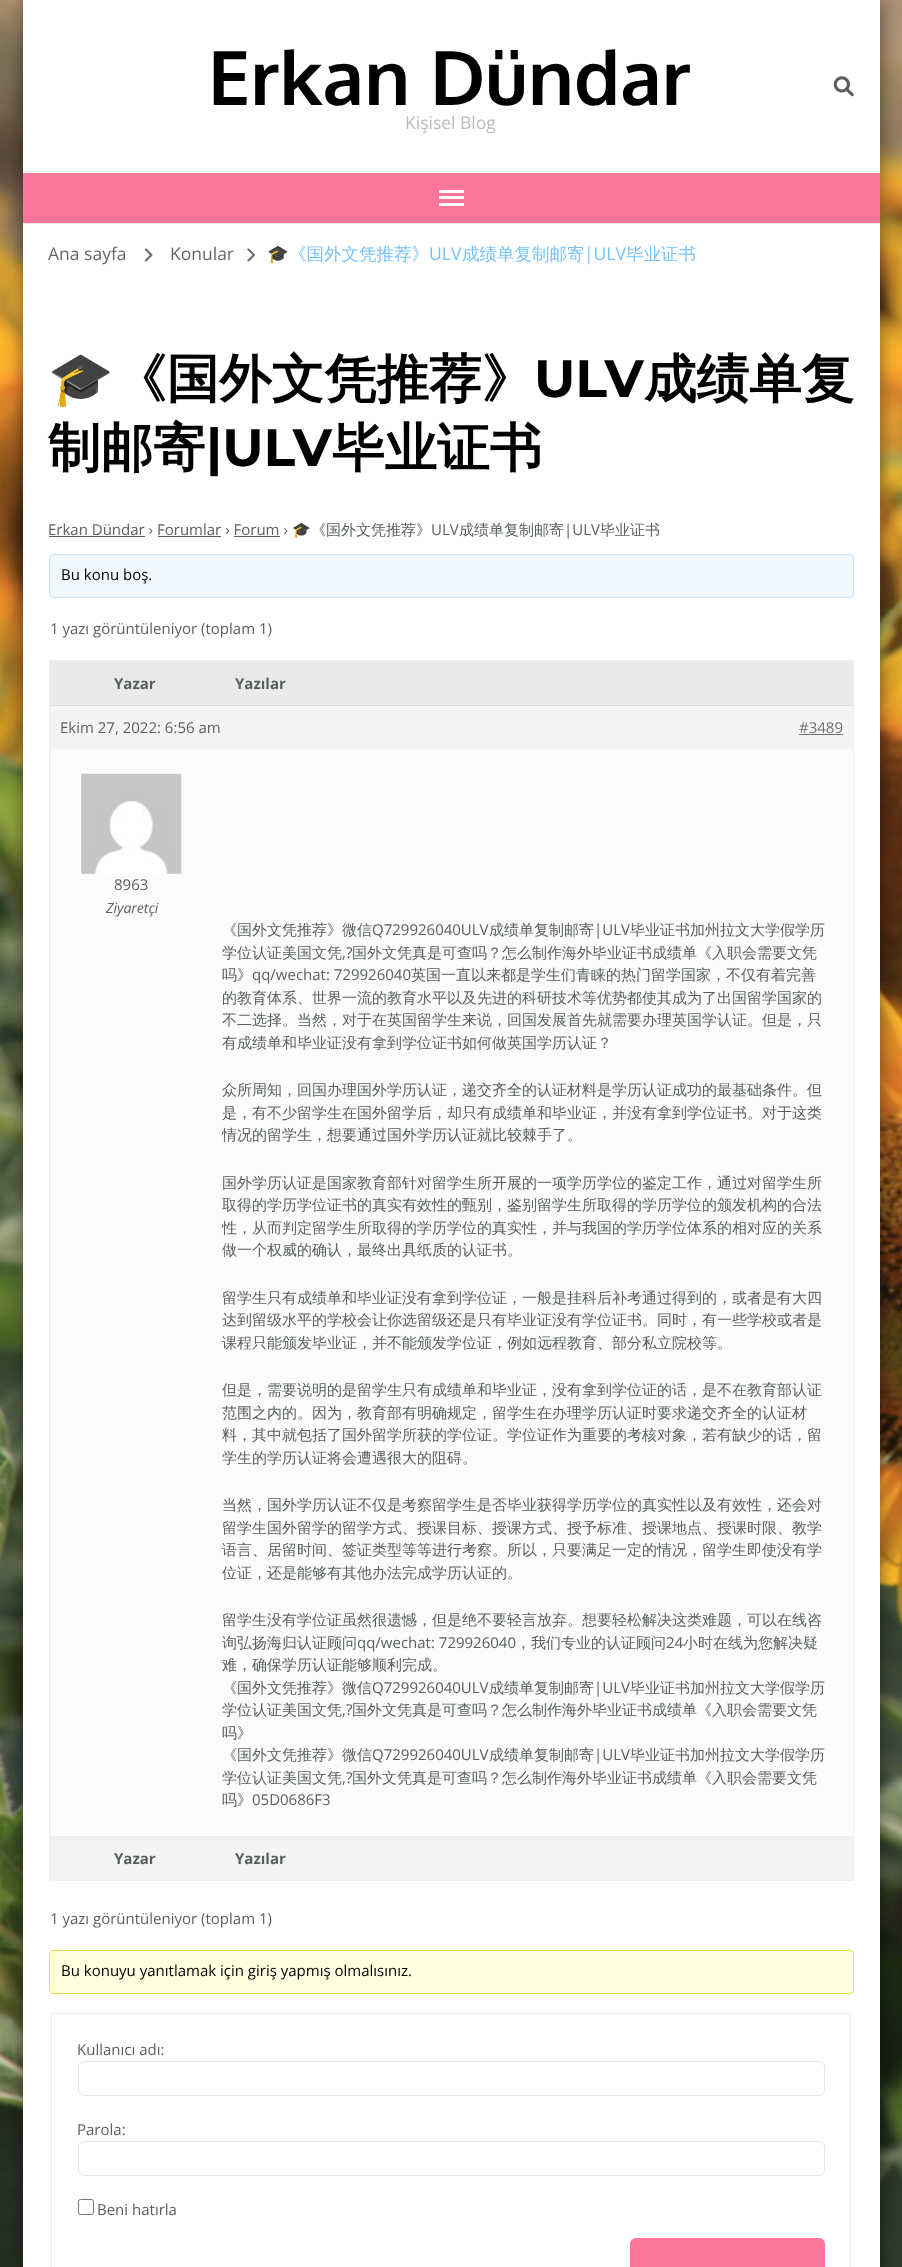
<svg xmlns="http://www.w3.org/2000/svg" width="902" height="2267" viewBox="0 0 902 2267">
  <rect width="100%" height="100%" fill="rgb(255,255,255)"/>
  <image x="0" y="0" width="902" height="2267" href="pic1.png"/>
  <rect x="23" y="0" width="857" height="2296" fill="rgba(0,0,0,0.5)" filter="blur(9.5px)"/>
  <rect x="23" y="0" width="857" height="2267" fill="rgb(255,255,255)"/>
  <rect x="23" y="223" width="857" height="1" fill="rgb(229,229,229)"/>
  <rect x="23" y="171" width="857" height="1" fill="rgb(229,229,229)"/>
  <text x="208" y="105" font-family="Oxygen" font-size="75" font-weight="bold" fill="rgb(0,0,0)">Erkan Dündar</text>
  <text x="405" y="129" font-family="Open Sans" font-size="17.5" fill="rgb(185,189,189)">Kişisel Blog</text>
  <image x="833" y="76" width="21" height="21" href="pic2.png"/>
  <rect x="23" y="173" width="857" height="50" fill="rgb(252,118,156)"/>
  <rect x="439" y="190" width="25" height="3" fill="rgb(255,255,255)"/>
  <rect x="439" y="196" width="25" height="3" fill="rgb(255,255,255)"/>
  <rect x="439" y="203" width="25" height="3" fill="rgb(255,255,255)"/>
  <text x="48" y="260" font-family="Open Sans" font-size="17.5" fill="rgb(102,102,102)">Ana sayfa</text>
  <image x="144" y="248" width="9" height="14" href="pic3.png"/>
  <text x="170" y="260" font-family="Open Sans" font-size="17.5" fill="rgb(102,102,102)">Konular</text>
  <image x="247" y="248" width="8" height="14" href="pic4.png"/>
  <text x="267" y="260" font-family="Noto Color Emoji" font-size="17.5" fill="rgb(118,195,252)">🎓</text>
  <text x="289" y="260" font-family="WenQuanYi Zen Hei" font-size="17.5" font-weight="500" fill="rgb(118,195,252)">《国外文凭推荐》</text>
  <text x="429" y="260" font-family="Open Sans" font-size="17.5" fill="rgb(118,195,252)">ULV</text>
  <text x="462" y="260" font-family="WenQuanYi Zen Hei" font-size="17.5" font-weight="500" fill="rgb(118,195,252)">成绩单复制邮寄</text>
  <text x="584" y="260" font-family="Open Sans" font-size="17.5" fill="rgb(118,195,252)">|ULV</text>
  <text x="626" y="260" font-family="WenQuanYi Zen Hei" font-size="17.5" font-weight="500" fill="rgb(118,195,252)">毕业证书</text>
  <text x="48" y="397" font-family="Noto Color Emoji" font-size="52.5" font-weight="bold" fill="rgb(0,0,0)">🎓</text>
  <text x="114" y="397" font-family="WenQuanYi Zen Hei" font-size="52.5" font-weight="bold" fill="rgb(0,0,0)">《国外文凭推荐》</text>
  <text x="534" y="397" font-family="Montserrat" font-size="52.5" font-weight="bold" fill="rgb(0,0,0)">ULV</text>
  <g font-family="WenQuanYi Zen Hei" font-size="52.5" font-weight="bold" fill="rgb(0,0,0)">
    <text x="644" y="397">成绩单复</text>
    <text x="48" y="466">制邮寄</text>
  </g>
  <text x="206" y="466" font-family="Montserrat" font-size="52.5" font-weight="bold" fill="rgb(0,0,0)">|ULV</text>
  <text x="332" y="466" font-family="WenQuanYi Zen Hei" font-size="52.5" font-weight="bold" fill="rgb(0,0,0)">毕业证书</text>
  <text x="48" y="535" font-family="Open Sans" font-size="15" fill="rgb(89,95,95)">Erkan Dündar › Forumlar › Forum ›</text>
  <rect x="49" y="536" width="96" height="1" fill="rgb(89,95,95)"/>
  <text x="292" y="535" font-family="Noto Color Emoji" font-size="15" fill="rgb(89,95,95)">🎓</text>
  <text x="311" y="535" font-family="WenQuanYi Zen Hei" font-size="15" font-weight="500" fill="rgb(89,95,95)">《国外文凭推荐》</text>
  <text x="431" y="535" font-family="Open Sans" font-size="15" fill="rgb(89,95,95)">ULV</text>
  <text x="459" y="535" font-family="WenQuanYi Zen Hei" font-size="15" font-weight="500" fill="rgb(89,95,95)">成绩单复制邮寄</text>
  <text x="564" y="535" font-family="Open Sans" font-size="15" fill="rgb(89,95,95)">|ULV</text>
  <text x="600" y="535" font-family="WenQuanYi Zen Hei" font-size="15" font-weight="500" fill="rgb(89,95,95)">毕业证书</text>
  <rect x="158" y="536" width="63" height="1" fill="rgb(89,95,95)"/>
  <rect x="234" y="536" width="46" height="1" fill="rgb(89,95,95)"/>
  <rect x="49.5" y="554.5" width="804" height="43" rx="3.5" fill="rgb(240,248,255)" stroke="rgb(206,225,239)"/>
  <text x="61" y="580" font-family="Open Sans" font-size="15" fill="rgb(0,0,0)">Bu konu boş.</text>
  <text x="50" y="634" font-family="Open Sans" font-size="15" fill="rgb(89,95,95)">1 yazı görüntüleniyor (toplam 1)</text>
  <rect x="49.5" y="660.5" width="804" height="1220" fill="none" stroke="rgb(238,238,238)"/>
  <rect x="50" y="662" width="803" height="43" fill="rgb(234,234,234)"/>
  <rect x="50" y="661" width="803" height="1" fill="rgb(238,238,238)"/>
  <g font-family="Open Sans" font-size="15" font-weight="bold" fill="rgb(89,95,95)">
    <text x="114" y="689">Yazar</text>
    <text x="235" y="689">Yazılar</text>
  </g>
  <rect x="50" y="706" width="803" height="43" fill="rgb(244,244,244)"/>
  <rect x="50" y="705" width="803" height="1" fill="rgb(221,221,221)"/>
  <text x="60" y="733" font-family="Open Sans" font-size="15" fill="rgb(89,95,95)">Ekim 27, 2022: 6:56 am</text>
  <text x="799" y="733" font-family="Open Sans" font-size="15" fill="rgb(112,112,112)">#3489</text>
  <rect x="799" y="734" width="44" height="1" fill="rgb(112,112,112)"/>
  <rect x="50" y="749" width="803" height="1087" fill="rgb(251,251,251)"/>
  <image x="81" y="773" width="101" height="101" href="pic5.png"/>
  <text x="114" y="890" font-family="Open Sans" font-size="15" fill="rgb(89,95,95)">8963</text>
  <text x="106" y="913" font-family="Open Sans" font-size="14" font-style="italic" fill="rgb(89,95,95)">Ziyaretçi</text>
  <text x="222" y="935" font-family="WenQuanYi Zen Hei" font-size="15" font-weight="500" fill="rgb(89,95,95)">《国外文凭推荐》微信</text>
  <text x="372" y="935" font-family="Open Sans" font-size="15" fill="rgb(89,95,95)">Q729926040ULV</text>
  <text x="489" y="935" font-family="WenQuanYi Zen Hei" font-size="15" font-weight="500" fill="rgb(89,95,95)">成绩单复制邮寄</text>
  <text x="594" y="935" font-family="Open Sans" font-size="15" fill="rgb(89,95,95)">|ULV</text>
  <g font-family="WenQuanYi Zen Hei" font-size="15" font-weight="500" fill="rgb(89,95,95)">
    <text x="630" y="935">毕业证书加州拉文大学假学历</text>
    <text x="222" y="958">学位认证美国文凭</text>
  </g>
  <text x="342" y="958" font-family="Open Sans" font-size="15" fill="rgb(89,95,95)">,?</text>
  <g font-family="WenQuanYi Zen Hei" font-size="15" font-weight="500" fill="rgb(89,95,95)">
    <text x="352" y="958">国外文凭真是可查吗？怎么制作海外毕业证书成绩单《入职会需要文凭</text>
    <text x="222" y="980">吗》</text>
  </g>
  <text x="252" y="980" font-family="Open Sans" font-size="15" fill="rgb(89,95,95)">qq/wechat: 729926040</text>
  <g font-family="WenQuanYi Zen Hei" font-size="15" font-weight="500" fill="rgb(89,95,95)">
    <text x="411" y="980">英国一直以来都是学生们青睐的热门留学国家，不仅有着完善</text>
    <text>
      <tspan x="222" y="1003">的教育体系、世界一流的教育水平以及先进的科研技术等优势都使其成为了出国留学国家的</tspan>
      <tspan x="222" y="1025">不二选择。当然，对于在英国留学生来说，回国发展首先就需要办理英国学认证。但是，只</tspan>
      <tspan x="222" y="1048">有成绩单和毕业证没有拿到学位证书如何做英国学历认证？</tspan>
    </text>
    <text>
      <tspan x="222" y="1095">众所周知，回国办理国外学历认证，递交齐全的认证材料是学历认证成功的最基础条件。但</tspan>
      <tspan x="222" y="1118">是，有不少留学生在国外留学后，却只有成绩单和毕业证，并没有拿到学位证书。对于这类</tspan>
      <tspan x="222" y="1140">情况的留学生，想要通过国外学历认证就比较棘手了。</tspan>
    </text>
    <text>
      <tspan x="222" y="1188">国外学历认证是国家教育部针对留学生所开展的一项学历学位的鉴定工作，通过对留学生所</tspan>
      <tspan x="222" y="1210">取得的学历学位证书的真实有效性的甄别，鉴别留学生所取得的学历学位的颁发机构的合法</tspan>
      <tspan x="222" y="1233">性，从而判定留学生所取得的学历学位的真实性，并与我国的学历学位体系的相对应的关系</tspan>
      <tspan x="222" y="1255">做一个权威的确认，最终出具纸质的认证书。</tspan>
    </text>
    <text>
      <tspan x="222" y="1303">留学生只有成绩单和毕业证没有拿到学位证，一般是挂科后补考通过得到的，或者是有大四</tspan>
      <tspan x="222" y="1325">达到留级水平的学校会让你选留级还是只有毕业证没有学位证书。同时，有一些学校或者是</tspan>
      <tspan x="222" y="1348">课程只能颁发毕业证，并不能颁发学位证，例如远程教育、部分私立院校等。</tspan>
    </text>
    <text>
      <tspan x="222" y="1395">但是，需要说明的是留学生只有成绩单和毕业证，没有拿到学位证的话，是不在教育部认证</tspan>
      <tspan x="222" y="1418">范围之内的。因为，教育部有明确规定，留学生在办理学历认证时要求递交齐全的认证材</tspan>
      <tspan x="222" y="1440">料，其中就包括了国外留学所获的学位证。学位证作为重要的考核对象，若有缺少的话，留</tspan>
      <tspan x="222" y="1463">学生的学历认证将会遭遇很大的阻碍。</tspan>
    </text>
    <text>
      <tspan x="222" y="1510">当然，国外学历认证不仅是考察留学生是否毕业获得学历学位的真实性以及有效性，还会对</tspan>
      <tspan x="222" y="1533">留学生国外留学的留学方式、授课目标、授课方式、授予标准、授课地点、授课时限、教学</tspan>
      <tspan x="222" y="1555">语言、居留时间、签证类型等等进行考察。所以，只要满足一定的情况，留学生即使没有学</tspan>
      <tspan x="222" y="1578">位证，还是能够有其他办法完成学历认证的。</tspan>
    </text>
    <text>
      <tspan x="222" y="1625">留学生没有学位证虽然很遗憾，但是绝不要轻言放弃。想要轻松解决这类难题，可以在线咨</tspan>
      <tspan x="222" y="1648">询弘扬海归认证顾问</tspan>
    </text>
  </g>
  <text x="357" y="1648" font-family="Open Sans" font-size="15" fill="rgb(89,95,95)">qq/wechat: 729926040</text>
  <text x="516" y="1648" font-family="WenQuanYi Zen Hei" font-size="15" font-weight="500" fill="rgb(89,95,95)">，我们专业的认证顾问</text>
  <text x="666" y="1648" font-family="Open Sans" font-size="15" fill="rgb(89,95,95)">24</text>
  <g font-family="WenQuanYi Zen Hei" font-size="15" font-weight="500" fill="rgb(89,95,95)">
    <text x="683" y="1648">小时在线为您解决疑</text>
    <text>
      <tspan x="222" y="1670">难，确保学历认证能够顺利完成。</tspan>
      <tspan x="222" y="1693">《国外文凭推荐》微信</tspan>
    </text>
  </g>
  <text x="372" y="1693" font-family="Open Sans" font-size="15" fill="rgb(89,95,95)">Q729926040ULV</text>
  <text x="489" y="1693" font-family="WenQuanYi Zen Hei" font-size="15" font-weight="500" fill="rgb(89,95,95)">成绩单复制邮寄</text>
  <text x="594" y="1693" font-family="Open Sans" font-size="15" fill="rgb(89,95,95)">|ULV</text>
  <g font-family="WenQuanYi Zen Hei" font-size="15" font-weight="500" fill="rgb(89,95,95)">
    <text x="630" y="1693">毕业证书加州拉文大学假学历</text>
    <text x="222" y="1715">学位认证美国文凭</text>
  </g>
  <text x="342" y="1715" font-family="Open Sans" font-size="15" fill="rgb(89,95,95)">,?</text>
  <g font-family="WenQuanYi Zen Hei" font-size="15" font-weight="500" fill="rgb(89,95,95)">
    <text x="352" y="1715">国外文凭真是可查吗？怎么制作海外毕业证书成绩单《入职会需要文凭</text>
    <text>
      <tspan x="222" y="1738">吗》</tspan>
      <tspan x="222" y="1760">《国外文凭推荐》微信</tspan>
    </text>
  </g>
  <text x="372" y="1760" font-family="Open Sans" font-size="15" fill="rgb(89,95,95)">Q729926040ULV</text>
  <text x="489" y="1760" font-family="WenQuanYi Zen Hei" font-size="15" font-weight="500" fill="rgb(89,95,95)">成绩单复制邮寄</text>
  <text x="594" y="1760" font-family="Open Sans" font-size="15" fill="rgb(89,95,95)">|ULV</text>
  <g font-family="WenQuanYi Zen Hei" font-size="15" font-weight="500" fill="rgb(89,95,95)">
    <text x="630" y="1760">毕业证书加州拉文大学假学历</text>
    <text x="222" y="1783">学位认证美国文凭</text>
  </g>
  <text x="342" y="1783" font-family="Open Sans" font-size="15" fill="rgb(89,95,95)">,?</text>
  <g font-family="WenQuanYi Zen Hei" font-size="15" font-weight="500" fill="rgb(89,95,95)">
    <text x="352" y="1783">国外文凭真是可查吗？怎么制作海外毕业证书成绩单《入职会需要文凭</text>
    <text x="222" y="1805">吗》</text>
  </g>
  <text x="252" y="1805" font-family="Open Sans" font-size="15" fill="rgb(89,95,95)">05D0686F3</text>
  <rect x="50" y="1837" width="803" height="43" fill="rgb(243,243,243)"/>
  <rect x="50" y="1836" width="803" height="1" fill="rgb(238,238,238)"/>
  <g font-family="Open Sans" font-size="15" font-weight="bold" fill="rgb(89,95,95)">
    <text x="114" y="1864">Yazar</text>
    <text x="235" y="1864">Yazılar</text>
  </g>
  <text x="50" y="1924" font-family="Open Sans" font-size="15" fill="rgb(89,95,95)">1 yazı görüntüleniyor (toplam 1)</text>
  <rect x="49.5" y="1950.5" width="804" height="43" rx="3.5" fill="rgb(255,255,224)" stroke="rgb(230,219,85)"/>
  <text x="61" y="1976" font-family="Open Sans" font-size="15" fill="rgb(0,0,0)">Bu konuyu yanıtlamak için giriş yapmış olmalısınız.</text>
  <rect x="51.5" y="2013.5" width="799" height="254" fill="none" stroke="rgb(238,238,238)"/>
  <text x="77" y="2055" font-family="Open Sans" font-size="15" fill="rgb(89,95,95)">Kullanıcı adı:</text>
  <rect x="78.5" y="2061.5" width="746" height="34" rx="5.5" fill="none" stroke="rgb(229,229,229)"/>
  <text x="77" y="2135" font-family="Open Sans" font-size="15" fill="rgb(89,95,95)">Parola:</text>
  <rect x="78.5" y="2141.5" width="746" height="34" rx="5.5" fill="none" stroke="rgb(229,229,229)"/>
  <rect x="78.5" y="2199.5" width="15" height="15" rx="2" fill="none" stroke="rgb(118,118,118)"/>
  <text x="97" y="2215" font-family="Open Sans" font-size="15" fill="rgb(89,95,95)">Beni hatırla</text>
  <rect x="630" y="2238" width="195" height="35" rx="6" fill="rgb(252,118,156)"/>
</svg>
